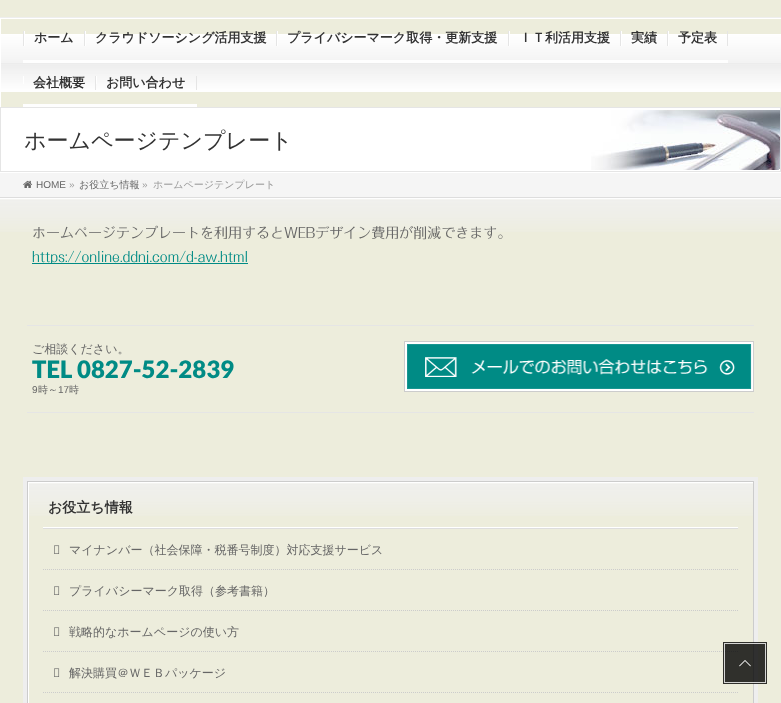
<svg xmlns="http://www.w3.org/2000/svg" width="781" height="703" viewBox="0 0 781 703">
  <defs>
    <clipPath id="clip1"><rect x="0" y="18" width="781" height="89"/></clipPath>
    <clipPath id="clip2"><rect x="28" y="482" width="725" height="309"/></clipPath>
  </defs>
  <rect width="100%" height="100%" fill="rgb(237,237,220)"/>
  <image x="1" y="34" width="780" height="58" href="pic1.png"/>
  <g clip-path="url(#clip1)">
    <path d="M-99-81H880V206H-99ZM1 19H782V108H1Z" fill="rgb(255,255,255)" fill-rule="evenodd"/>
  </g>
  <rect x="0" y="17" width="781" height="1" fill="rgb(238,238,238)"/>
  <rect x="23" y="60" width="705" height="3" fill="rgb(254,254,254)"/>
  <rect x="24" y="31" width="1" height="15" fill="rgb(255,255,255)"/>
  <rect x="84" y="31" width="1" height="15" fill="rgb(229,229,229)"/>
  <rect x="23" y="31" width="1" height="15" fill="rgb(229,229,229)"/>
  <text x="34" y="42" font-family="WenQuanYi Zen Hei" font-size="13" font-weight="bold" fill="rgb(51,51,51)">ホーム</text>
  <rect x="85" y="31" width="1" height="15" fill="rgb(255,255,255)"/>
  <rect x="276" y="31" width="1" height="15" fill="rgb(229,229,229)"/>
  <text x="95" y="42" font-family="WenQuanYi Zen Hei" font-size="13" font-weight="bold" fill="rgb(51,51,51)">クラウドソーシング活用支援</text>
  <rect x="277" y="31" width="1" height="15" fill="rgb(255,255,255)"/>
  <rect x="508" y="31" width="1" height="15" fill="rgb(229,229,229)"/>
  <text x="287" y="42" font-family="WenQuanYi Zen Hei" font-size="13" font-weight="bold" fill="rgb(51,51,51)">プライバシーマーク取得・更新支援</text>
  <rect x="509" y="31" width="1" height="15" fill="rgb(255,255,255)"/>
  <rect x="620" y="31" width="1" height="15" fill="rgb(229,229,229)"/>
  <text x="519" y="42" font-family="WenQuanYi Zen Hei" font-size="13" font-weight="bold" fill="rgb(51,51,51)">ＩＴ利活用支援</text>
  <rect x="621" y="31" width="1" height="15" fill="rgb(255,255,255)"/>
  <rect x="667" y="31" width="1" height="15" fill="rgb(229,229,229)"/>
  <text x="631" y="42" font-family="WenQuanYi Zen Hei" font-size="13" font-weight="bold" fill="rgb(51,51,51)">実績</text>
  <rect x="668" y="31" width="1" height="15" fill="rgb(255,255,255)"/>
  <rect x="727" y="31" width="1" height="15" fill="rgb(229,229,229)"/>
  <text x="678" y="42" font-family="WenQuanYi Zen Hei" font-size="13" font-weight="bold" fill="rgb(51,51,51)">予定表</text>
  <rect x="23" y="104" width="174" height="3" fill="rgb(254,254,254)"/>
  <rect x="23" y="76" width="1" height="8" fill="rgb(255,255,255)"/>
  <rect x="95" y="76" width="1" height="14" fill="rgb(229,229,229)"/>
  <text x="33" y="87" font-family="WenQuanYi Zen Hei" font-size="13" font-weight="bold" fill="rgb(51,51,51)">会社概要</text>
  <rect x="96" y="76" width="1" height="8" fill="rgb(255,255,255)"/>
  <rect x="196" y="76" width="1" height="14" fill="rgb(229,229,229)"/>
  <text x="106" y="87" font-family="WenQuanYi Zen Hei" font-size="13" font-weight="bold" fill="rgb(51,51,51)">お問い合わせ</text>
  <rect x="0" y="107" width="781" height="1" fill="rgb(229,229,229)"/>
  <rect x="0" y="171" width="781" height="1" fill="rgb(229,229,229)"/>
  <rect x="1" y="108" width="779" height="63" fill="rgb(255,255,255)"/>
  <image x="591" y="110" width="189" height="60" href="pic2.png"/>
  <rect x="780" y="108" width="1" height="63" fill="rgb(229,229,229)"/>
  <rect x="0" y="108" width="1" height="63" fill="rgb(229,229,229)"/>
  <text x="24" y="148" font-family="WenQuanYi Zen Hei" font-size="22" font-weight="500" fill="rgb(51,51,51)">ホームページテンプレート</text>
  <rect x="0" y="173" width="781" height="24" fill="rgb(245,245,245)"/>
  <rect x="0" y="172" width="781" height="1" fill="rgb(255,255,255)"/>
  <rect x="0" y="197" width="781" height="1" fill="rgb(221,221,221)"/>
  <image x="23" y="180" width="10" height="8" href="pic3.png"/>
  <text x="36" y="188" font-family="Liberation Sans" font-size="10" fill="rgb(102,102,102)">HOME</text>
  <text x="69" y="188" font-family="Liberation Sans" font-size="10" fill="rgb(153,153,153)">»</text>
  <text x="79" y="188" font-family="WenQuanYi Zen Hei" font-size="10" font-weight="500" fill="rgb(102,102,102)">お役立ち情報</text>
  <text x="142" y="188" font-family="Liberation Sans" font-size="10" fill="rgb(153,153,153)">»</text>
  <text x="153" y="188" font-family="WenQuanYi Zen Hei" font-size="10" font-weight="500" fill="rgb(153,153,153)">ホームページテンプレート</text>
  <image x="0" y="198" width="781" height="34" href="pic4.png"/>
  <text x="32" y="238" font-family="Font" font-size="14" fill="rgb(102,102,102)">ホームページテンプレートを利用するとWEBデザイン費用が削減できます。</text>
  <rect x="32" y="263" width="216" height="1" fill="rgb(0,139,133)"/>
  <text x="32" y="262" font-family="Font" font-size="14" fill="rgb(0,139,133)">https://online.ddnj.com/d-aw.html</text>
  <rect x="27" y="325" width="727" height="1" fill="rgb(229,229,229)"/>
  <rect x="27" y="412" width="727" height="1" fill="rgb(229,229,229)"/>
  <text x="32" y="353" font-family="WenQuanYi Zen Hei" font-size="12" font-weight="500" fill="rgb(102,102,102)">ご相談ください。</text>
  <text x="32" y="378" font-family="Lato" font-size="24" font-weight="900" fill="rgb(0,139,133)">TEL 0827-52-2839</text>
  <text x="32" y="393" font-family="Liberation Sans" font-size="10" fill="rgb(102,102,102)">9</text>
  <text x="38" y="393" font-family="WenQuanYi Zen Hei" font-size="10" font-weight="500" fill="rgb(102,102,102)">時～</text>
  <text x="58" y="393" font-family="Liberation Sans" font-size="10" fill="rgb(102,102,102)">17</text>
  <text x="69" y="393" font-family="WenQuanYi Zen Hei" font-size="10" font-weight="500" fill="rgb(102,102,102)">時</text>
  <rect x="407" y="344" width="345" height="45" fill="rgb(0,139,133)"/>
  <image x="404" y="341" width="350" height="51" href="pic5.png"/>
  <image x="29" y="483" width="724" height="33" href="pic6.png"/>
  <g clip-path="url(#clip2)">
    <path d="M-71 383H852V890H-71ZM29 483H754V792H29Z" fill="rgb(255,255,255)" fill-rule="evenodd"/>
  </g>
  <rect x="27.5" y="481.5" width="726" height="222" fill="none" stroke="rgb(204,204,204)"/>
  <path d="M43 569.5H738" fill="none" stroke="rgb(204,204,204)" stroke-dasharray="1 1"/>
  <path d="M43 610.5H738" fill="none" stroke="rgb(204,204,204)" stroke-dasharray="1 1"/>
  <path d="M43 651.5H738" fill="none" stroke="rgb(204,204,204)" stroke-dasharray="1 1"/>
  <path d="M43 692.5H738" fill="none" stroke="rgb(204,204,204)" stroke-dasharray="1 1"/>
  <rect x="25" y="479" width="731" height="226" fill="none" stroke="rgb(238,238,238)" stroke-width="4"/>
  <rect x="43" y="528" width="695" height="1" fill="rgb(221,221,221)"/>
  <text x="48" y="512" font-family="WenQuanYi Zen Hei" font-size="14" font-weight="bold" fill="rgb(51,51,51)">お役立ち情報</text>
  <rect x="43" y="527" width="695" height="1" fill="rgb(255,255,255)"/>
  <image x="54" y="545" width="6" height="9" href="pic7.png"/>
  <text x="69" y="554" font-family="WenQuanYi Zen Hei" font-size="12" font-weight="500" fill="rgb(102,102,102)">マイナンバー（社会保障・税番号制度）対応支援サービス</text>
  <image x="54" y="586" width="6" height="9" href="pic7.png"/>
  <text x="69" y="595" font-family="WenQuanYi Zen Hei" font-size="12" font-weight="500" fill="rgb(102,102,102)">プライバシーマーク取得（参考書籍）</text>
  <image x="54" y="627" width="6" height="9" href="pic7.png"/>
  <text x="69" y="636" font-family="WenQuanYi Zen Hei" font-size="12" font-weight="500" fill="rgb(102,102,102)">戦略的なホームページの使い方</text>
  <image x="54" y="668" width="6" height="9" href="pic7.png"/>
  <text x="69" y="677" font-family="WenQuanYi Zen Hei" font-size="12" font-weight="500" fill="rgb(102,102,102)">解決購買＠ＷＥＢパッケージ</text>
  <rect x="724" y="643" width="42" height="40" fill="none" stroke="rgba(0,0,0,0.8)" stroke-width="2"/>
  <rect x="724.5" y="643.5" width="41" height="39" fill="none" stroke="rgba(255,255,255,0.8)"/>
  <rect x="725" y="644" width="40" height="38" fill="rgba(0,0,0,0.8)"/>
  <image x="739" y="660" width="12" height="7" href="pic8.png"/>
</svg>
